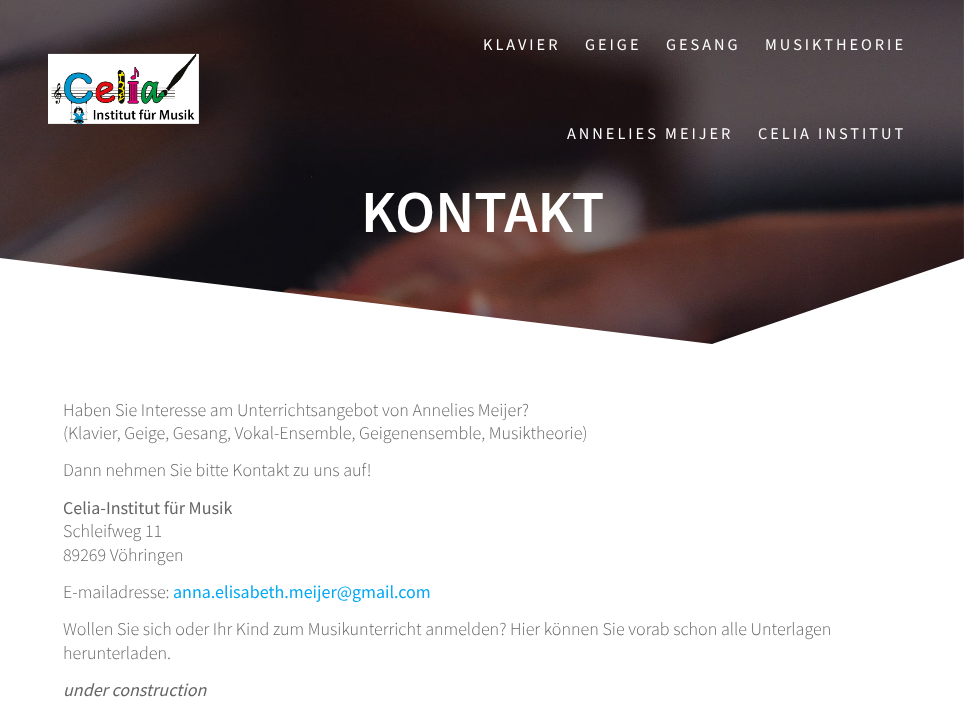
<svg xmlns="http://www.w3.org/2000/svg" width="964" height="701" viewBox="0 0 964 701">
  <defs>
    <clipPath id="clip1"><rect x="0" y="258" width="964" height="90"/></clipPath>
  </defs>
  <rect width="100%" height="100%" fill="rgb(255,255,255)"/>
  <image x="0" y="0" width="964" height="344" href="pic2.png"/>
  <image x="48" y="53" width="151" height="71" href="pic1.png"/>
  <g font-family="Source Sans Pro" font-size="16.25" letter-spacing="3" fill="rgb(255,255,255)">
    <text x="483" y="50">KLAVIER</text>
    <text x="585" y="50">GEIGE</text>
    <text x="666" y="50">GESANG</text>
    <text x="765" y="50">MUSIKTHEORIE</text>
    <text x="567" y="139">ANNELIES MEIJER</text>
    <text x="758" y="139">CELIA INSTITUT</text>
  </g>
  <text x="361" y="232" font-family="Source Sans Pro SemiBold" font-size="59.5" font-weight="600" fill="rgb(255,255,255)">KONTAKT</text>
  <g clip-path="url(#clip1)">
    <path d="M712 344L0 258V349H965V258Z" fill="rgb(255,255,255)"/>
  </g>
  <g font-family="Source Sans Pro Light" font-size="18" font-weight="300" fill="rgb(102,102,102)">
    <text>
      <tspan x="63" y="416">Haben Sie Interesse am Unterrichtsangebot von Annelies Meijer?</tspan>
      <tspan x="63" y="439">(Klavier, Geige, Gesang, Vokal-Ensemble, Geigenensemble, Musiktheorie)</tspan>
    </text>
    <text x="63" y="476">Dann nehmen Sie bitte Kontakt zu uns auf!</text>
  </g>
  <text x="63" y="514" font-family="Source Sans Pro" font-size="18" fill="rgb(102,102,102)">Celia-Institut für Musik</text>
  <g font-family="Source Sans Pro Light" font-size="18" font-weight="300" fill="rgb(102,102,102)">
    <text>
      <tspan x="63" y="537">Schleifweg 11</tspan>
      <tspan x="63" y="561">89269 Vöhringen</tspan>
    </text>
    <text x="63" y="598">E-mailadresse:</text>
  </g>
  <text x="173" y="598" font-family="Source Sans Pro" font-size="18" fill="rgb(3,169,244)">anna.elisabeth.meijer@gmail.com</text>
  <g font-family="Source Sans Pro Light" font-size="18" font-weight="300" fill="rgb(102,102,102)">
    <text>
      <tspan x="63" y="635">Wollen Sie sich oder Ihr Kind zum Musikunterricht anmelden? Hier können Sie vorab schon alle Unterlagen</tspan>
      <tspan x="63" y="659">herunterladen.</tspan>
    </text>
  </g>
  <text x="63" y="696" font-family="Source Sans Pro" font-size="18" font-style="italic" fill="rgb(102,102,102)">under construction</text>
</svg>
